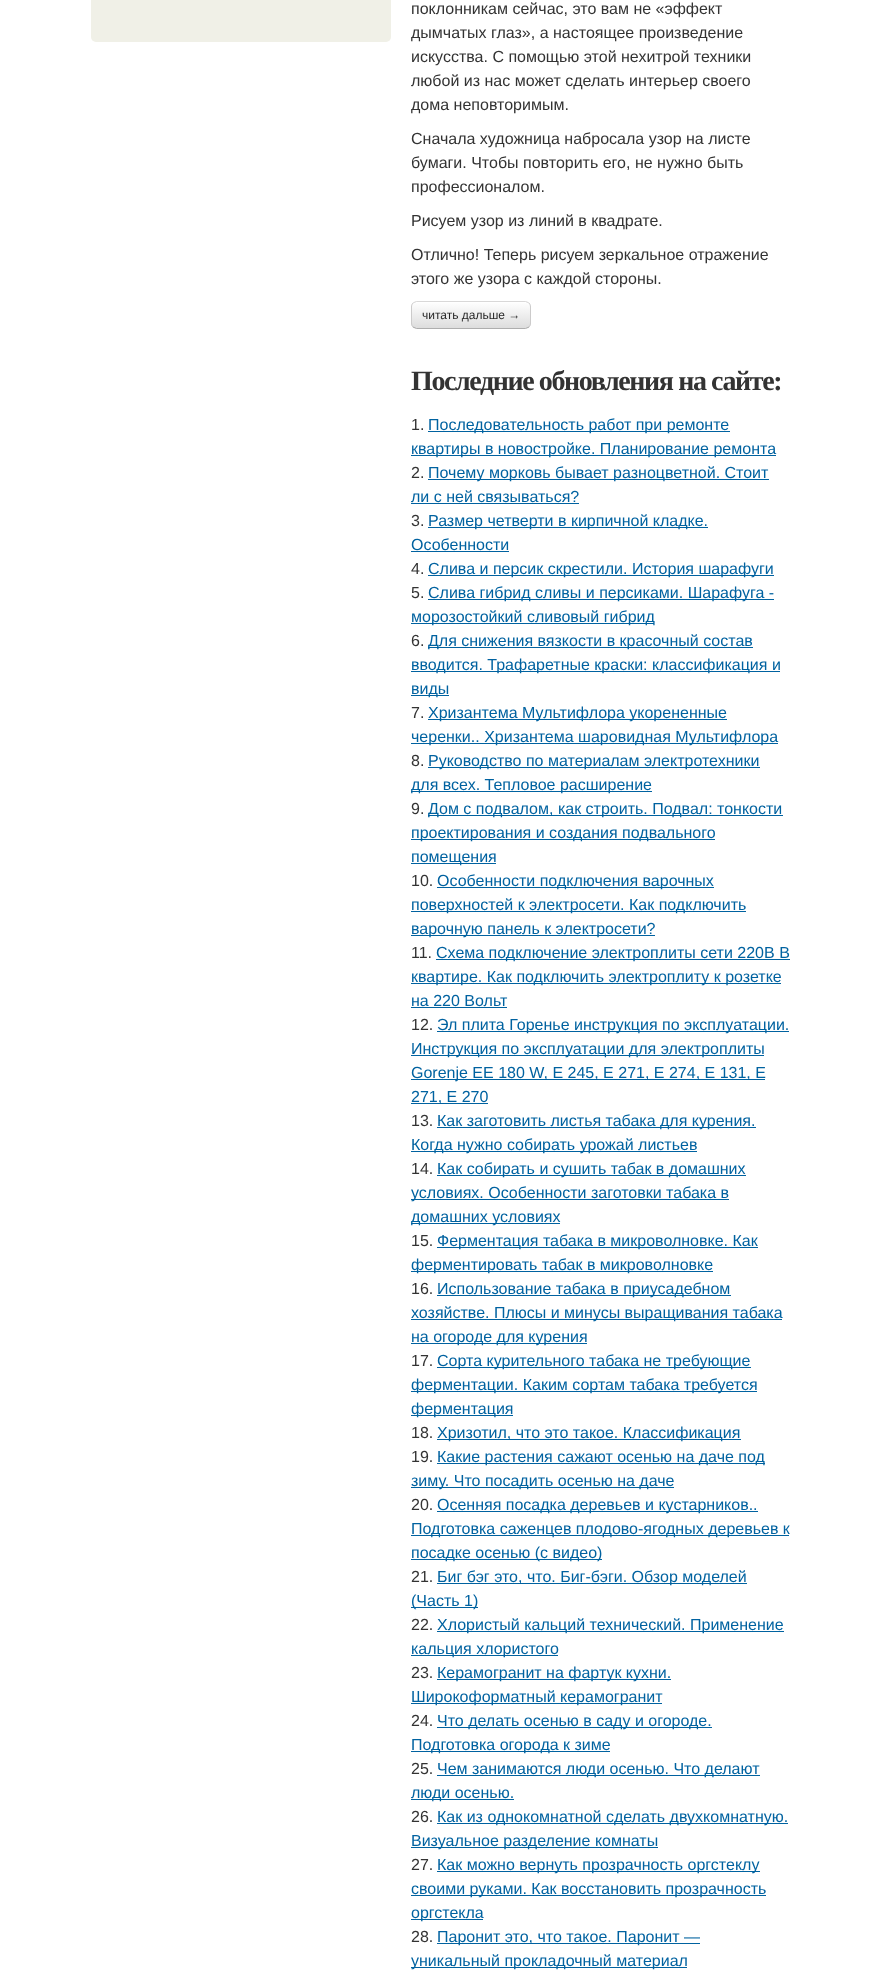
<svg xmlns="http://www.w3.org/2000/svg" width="881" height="1980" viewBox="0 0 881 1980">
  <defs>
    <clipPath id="clip1"><rect x="411" y="0" width="380" height="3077"/></clipPath>
    <clipPath id="clip2"><rect x="411" y="301" width="120" height="28" rx="6"/></clipPath>
    <linearGradient id="g1" gradientUnits="userSpaceOnUse" x1="412" y1="302" x2="412" y2="328"><stop offset="0" stop-color="rgb(255,255,255)"/><stop offset="1" stop-color="rgb(221,221,221)"/></linearGradient>
  </defs>
  <rect width="100%" height="100%" fill="rgb(255,255,255)"/>
  <rect x="91" y="-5" width="300" height="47" rx="5" fill="rgb(240,240,231)"/>
  <text x="411" y="14" font-family="Liberation Sans" font-size="16" fill="rgb(51,51,51)">поклонникам сейчас, это вам не «эффект</text>
  <g clip-path="url(#clip1)">
    <text x="411" y="38" font-family="Liberation Sans" font-size="16" fill="rgb(51,51,51)">дымчатых глаз», а настоящее произведение</text>
  </g>
  <g font-family="Liberation Sans" font-size="16" fill="rgb(51,51,51)">
    <text>
      <tspan x="411" y="62">искусства. С помощью этой нехитрой техники</tspan>
      <tspan x="411" y="86">любой из нас может сделать интерьер своего</tspan>
    </text>
  </g>
  <g clip-path="url(#clip1)">
    <text x="411" y="110" font-family="Liberation Sans" font-size="16" fill="rgb(51,51,51)">дома неповторимым.</text>
  </g>
  <g font-family="Liberation Sans" font-size="16" fill="rgb(51,51,51)">
    <text>
      <tspan x="411" y="144">Сначала художница набросала узор на листе</tspan>
      <tspan x="411" y="168">бумаги. Чтобы повторить его, не нужно быть</tspan>
      <tspan x="411" y="192">профессионалом.</tspan>
    </text>
    <text x="411" y="226">Рисуем узор из линий в квадрате.</text>
    <text>
      <tspan x="411" y="260">Отлично! Теперь рисуем зеркальное отражение</tspan>
      <tspan x="411" y="284">этого же узора с каждой стороны.</tspan>
    </text>
  </g>
  <rect x="411" y="301" width="120" height="28" rx="6" fill="rgb(238,238,238)"/>
  <g clip-path="url(#clip2)">
    <rect x="411" y="302" width="120" height="26" fill="url(#g1)"/>
  </g>
  <path d="M417 303H525C528 303 530 305 530 308C530 297 512 302 507 302H435C430 302 412 297 412 308C412 305 414 303 417 303Z" fill="rgb(255,255,255)"/>
  <path d="M413 303L416.5 301.5H525.5L529 303" fill="none" stroke="rgb(217,216,216)"/>
  <path d="M529 303C530 304 530.5 305.5 530.5 307V323C530.5 324.5 530 326 529 327" fill="none" stroke="rgb(204,203,203)"/>
  <path d="M529 327L525.5 328.5H416.5L413 327" fill="none" stroke="rgb(174,174,174)"/>
  <path d="M413 327C412 326 411.5 324.5 411.5 323V307C411.5 305.5 412 304 413 303" fill="none" stroke="rgb(204,203,203)"/>
  <text x="422" y="319" font-family="Liberation Sans" font-size="12" fill="rgb(40,40,40)">читать дальше →</text>
  <text x="411" y="390" font-family="Liberation Serif" font-size="28" font-weight="bold" letter-spacing="-1.4" fill="rgb(51,51,51)">Последние обновления на сайте:</text>
  <text x="411" y="430" font-family="Liberation Sans" font-size="16" fill="rgb(51,51,51)">1.</text>
  <rect x="428" y="431" width="302" height="1" fill="rgb(0,98,160)"/>
  <text x="428" y="430" font-family="Liberation Sans" font-size="16" fill="rgb(0,98,160)">Последовательность работ при ремонте</text>
  <rect x="411" y="455" width="365" height="1" fill="rgb(0,98,160)"/>
  <text x="411" y="454" font-family="Liberation Sans" font-size="16" fill="rgb(0,98,160)">квартиры в новостройке. Планирование ремонта</text>
  <text x="411" y="478" font-family="Liberation Sans" font-size="16" fill="rgb(51,51,51)">2.</text>
  <rect x="428" y="479" width="341" height="1" fill="rgb(0,98,160)"/>
  <g font-family="Liberation Sans" font-size="16" fill="rgb(0,98,160)">
    <text x="428" y="478">Почему морковь бывает разноцветной. Стоит</text>
    <text x="411" y="502">ли с ней связываться?</text>
  </g>
  <rect x="411" y="503" width="168" height="1" fill="rgb(0,98,160)"/>
  <text x="411" y="526" font-family="Liberation Sans" font-size="16" fill="rgb(51,51,51)">3.</text>
  <rect x="428" y="527" width="280" height="1" fill="rgb(0,98,160)"/>
  <g font-family="Liberation Sans" font-size="16" fill="rgb(0,98,160)">
    <text x="428" y="526">Размер четверти в кирпичной кладке.</text>
    <text x="411" y="550">Особенности</text>
  </g>
  <rect x="411" y="551" width="98" height="1" fill="rgb(0,98,160)"/>
  <text x="411" y="574" font-family="Liberation Sans" font-size="16" fill="rgb(51,51,51)">4.</text>
  <rect x="428" y="575" width="346" height="1" fill="rgb(0,98,160)"/>
  <text x="428" y="574" font-family="Liberation Sans" font-size="16" fill="rgb(0,98,160)">Слива и персик скрестили. История шарафуги</text>
  <text x="411" y="598" font-family="Liberation Sans" font-size="16" fill="rgb(51,51,51)">5.</text>
  <rect x="428" y="599" width="346" height="1" fill="rgb(0,98,160)"/>
  <text x="428" y="598" font-family="Liberation Sans" font-size="16" fill="rgb(0,98,160)">Слива гибрид сливы и персиками. Шарафуга -</text>
  <rect x="411" y="623" width="243" height="1" fill="rgb(0,98,160)"/>
  <text x="411" y="622" font-family="Liberation Sans" font-size="16" fill="rgb(0,98,160)">морозостойкий сливовый гибрид</text>
  <text x="411" y="646" font-family="Liberation Sans" font-size="16" fill="rgb(51,51,51)">6.</text>
  <rect x="428" y="647" width="325" height="1" fill="rgb(0,98,160)"/>
  <text x="428" y="646" font-family="Liberation Sans" font-size="16" fill="rgb(0,98,160)">Для снижения вязкости в красочный состав</text>
  <rect x="411" y="671" width="369" height="1" fill="rgb(0,98,160)"/>
  <text x="411" y="670" font-family="Liberation Sans" font-size="16" fill="rgb(0,98,160)">вводится. Трафаретные краски: классификация и</text>
  <rect x="411" y="695" width="38" height="1" fill="rgb(0,98,160)"/>
  <text x="411" y="694" font-family="Liberation Sans" font-size="16" fill="rgb(0,98,160)">виды</text>
  <text x="411" y="718" font-family="Liberation Sans" font-size="16" fill="rgb(51,51,51)">7.</text>
  <rect x="428" y="719" width="299" height="1" fill="rgb(0,98,160)"/>
  <text x="428" y="718" font-family="Liberation Sans" font-size="16" fill="rgb(0,98,160)">Хризантема Мультифлора укорененные</text>
  <rect x="411" y="743" width="367" height="1" fill="rgb(0,98,160)"/>
  <text x="411" y="742" font-family="Liberation Sans" font-size="16" fill="rgb(0,98,160)">черенки.. Хризантема шаровидная Мультифлора</text>
  <text x="411" y="766" font-family="Liberation Sans" font-size="16" fill="rgb(51,51,51)">8.</text>
  <rect x="428" y="767" width="332" height="1" fill="rgb(0,98,160)"/>
  <text x="428" y="766" font-family="Liberation Sans" font-size="16" fill="rgb(0,98,160)">Руководство по материалам электротехники</text>
  <rect x="411" y="791" width="241" height="1" fill="rgb(0,98,160)"/>
  <g clip-path="url(#clip1)">
    <text x="411" y="790" font-family="Liberation Sans" font-size="16" fill="rgb(0,98,160)">для всех. Тепловое расширение</text>
  </g>
  <text x="411" y="814" font-family="Liberation Sans" font-size="16" fill="rgb(51,51,51)">9.</text>
  <rect x="428" y="815" width="355" height="1" fill="rgb(0,98,160)"/>
  <text x="428" y="814" font-family="Liberation Sans" font-size="16" fill="rgb(0,98,160)">Дом с подвалом, как строить. Подвал: тонкости</text>
  <rect x="411" y="839" width="304" height="1" fill="rgb(0,98,160)"/>
  <text x="411" y="838" font-family="Liberation Sans" font-size="16" fill="rgb(0,98,160)">проектирования и создания подвального</text>
  <rect x="411" y="863" width="85" height="1" fill="rgb(0,98,160)"/>
  <text x="411" y="862" font-family="Liberation Sans" font-size="16" fill="rgb(0,98,160)">помещения</text>
  <text x="411" y="886" font-family="Liberation Sans" font-size="16" fill="rgb(51,51,51)">10.</text>
  <rect x="437" y="887" width="277" height="1" fill="rgb(0,98,160)"/>
  <text x="437" y="886" font-family="Liberation Sans" font-size="16" fill="rgb(0,98,160)">Особенности подключения варочных</text>
  <rect x="411" y="911" width="335" height="1" fill="rgb(0,98,160)"/>
  <text x="411" y="910" font-family="Liberation Sans" font-size="16" fill="rgb(0,98,160)">поверхностей к электросети. Как подключить</text>
  <rect x="411" y="935" width="244" height="1" fill="rgb(0,98,160)"/>
  <text x="411" y="934" font-family="Liberation Sans" font-size="16" fill="rgb(0,98,160)">варочную панель к электросети?</text>
  <text x="411" y="958" font-family="Liberation Sans" font-size="16" fill="rgb(51,51,51)">11.</text>
  <rect x="436" y="959" width="354" height="1" fill="rgb(0,98,160)"/>
  <text x="436" y="958" font-family="Liberation Sans" font-size="16" fill="rgb(0,98,160)">Схема подключение электроплиты сети 220В В</text>
  <rect x="411" y="983" width="370" height="1" fill="rgb(0,98,160)"/>
  <g font-family="Liberation Sans" font-size="16" fill="rgb(0,98,160)">
    <text>
      <tspan x="411" y="982">квартире. Как подключить электроплиту к розетке</tspan>
      <tspan x="411" y="1006">на 220 Вольт</tspan>
    </text>
  </g>
  <rect x="411" y="1007" width="96" height="1" fill="rgb(0,98,160)"/>
  <text x="411" y="1030" font-family="Liberation Sans" font-size="16" fill="rgb(51,51,51)">12.</text>
  <rect x="437" y="1031" width="352" height="1" fill="rgb(0,98,160)"/>
  <text x="437" y="1030" font-family="Liberation Sans" font-size="16" fill="rgb(0,98,160)">Эл плита Горенье инструкция по эксплуатации.</text>
  <rect x="411" y="1055" width="353" height="1" fill="rgb(0,98,160)"/>
  <text x="411" y="1054" font-family="Liberation Sans" font-size="16" fill="rgb(0,98,160)">Инструкция по эксплуатации для электроплиты</text>
  <rect x="411" y="1079" width="354" height="1" fill="rgb(0,98,160)"/>
  <text x="411" y="1078" font-family="Liberation Sans" font-size="16" fill="rgb(0,98,160)">Gorenje EE 180 W, E 245, E 271, E 274, E 131, E</text>
  <rect x="411" y="1103" width="77" height="1" fill="rgb(0,98,160)"/>
  <text x="411" y="1102" font-family="Liberation Sans" font-size="16" fill="rgb(0,98,160)">271, E 270</text>
  <text x="411" y="1126" font-family="Liberation Sans" font-size="16" fill="rgb(51,51,51)">13.</text>
  <rect x="437" y="1127" width="319" height="1" fill="rgb(0,98,160)"/>
  <text x="437" y="1126" font-family="Liberation Sans" font-size="16" fill="rgb(0,98,160)">Как заготовить листья табака для курения.</text>
  <rect x="411" y="1151" width="286" height="1" fill="rgb(0,98,160)"/>
  <text x="411" y="1150" font-family="Liberation Sans" font-size="16" fill="rgb(0,98,160)">Когда нужно собирать урожай листьев</text>
  <text x="411" y="1174" font-family="Liberation Sans" font-size="16" fill="rgb(51,51,51)">14.</text>
  <rect x="437" y="1175" width="309" height="1" fill="rgb(0,98,160)"/>
  <text x="437" y="1174" font-family="Liberation Sans" font-size="16" fill="rgb(0,98,160)">Как собирать и сушить табак в домашних</text>
  <rect x="411" y="1199" width="318" height="1" fill="rgb(0,98,160)"/>
  <text x="411" y="1198" font-family="Liberation Sans" font-size="16" fill="rgb(0,98,160)">условиях. Особенности заготовки табака в</text>
  <rect x="411" y="1223" width="149" height="1" fill="rgb(0,98,160)"/>
  <g clip-path="url(#clip1)">
    <text x="411" y="1222" font-family="Liberation Sans" font-size="16" fill="rgb(0,98,160)">домашних условиях</text>
  </g>
  <text x="411" y="1246" font-family="Liberation Sans" font-size="16" fill="rgb(51,51,51)">15.</text>
  <rect x="437" y="1247" width="321" height="1" fill="rgb(0,98,160)"/>
  <text x="437" y="1246" font-family="Liberation Sans" font-size="16" fill="rgb(0,98,160)">Ферментация табака в микроволновке. Как</text>
  <rect x="411" y="1271" width="302" height="1" fill="rgb(0,98,160)"/>
  <text x="411" y="1270" font-family="Liberation Sans" font-size="16" fill="rgb(0,98,160)">ферментировать табак в микроволновке</text>
  <text x="411" y="1294" font-family="Liberation Sans" font-size="16" fill="rgb(51,51,51)">16.</text>
  <rect x="437" y="1295" width="294" height="1" fill="rgb(0,98,160)"/>
  <text x="437" y="1294" font-family="Liberation Sans" font-size="16" fill="rgb(0,98,160)">Использование табака в приусадебном</text>
  <rect x="411" y="1319" width="371" height="1" fill="rgb(0,98,160)"/>
  <text x="411" y="1318" font-family="Liberation Sans" font-size="16" fill="rgb(0,98,160)">хозяйстве. Плюсы и минусы выращивания табака</text>
  <rect x="411" y="1343" width="176" height="1" fill="rgb(0,98,160)"/>
  <text x="411" y="1342" font-family="Liberation Sans" font-size="16" fill="rgb(0,98,160)">на огороде для курения</text>
  <text x="411" y="1366" font-family="Liberation Sans" font-size="16" fill="rgb(51,51,51)">17.</text>
  <rect x="437" y="1367" width="314" height="1" fill="rgb(0,98,160)"/>
  <text x="437" y="1366" font-family="Liberation Sans" font-size="16" fill="rgb(0,98,160)">Сорта курительного табака не требующие</text>
  <rect x="411" y="1391" width="346" height="1" fill="rgb(0,98,160)"/>
  <text x="411" y="1390" font-family="Liberation Sans" font-size="16" fill="rgb(0,98,160)">ферментации. Каким сортам табака требуется</text>
  <rect x="411" y="1415" width="102" height="1" fill="rgb(0,98,160)"/>
  <text x="411" y="1414" font-family="Liberation Sans" font-size="16" fill="rgb(0,98,160)">ферментация</text>
  <text x="411" y="1438" font-family="Liberation Sans" font-size="16" fill="rgb(51,51,51)">18.</text>
  <rect x="437" y="1439" width="304" height="1" fill="rgb(0,98,160)"/>
  <text x="437" y="1438" font-family="Liberation Sans" font-size="16" fill="rgb(0,98,160)">Хризотил, что это такое. Классификация</text>
  <text x="411" y="1462" font-family="Liberation Sans" font-size="16" fill="rgb(51,51,51)">19.</text>
  <rect x="437" y="1463" width="328" height="1" fill="rgb(0,98,160)"/>
  <text x="437" y="1462" font-family="Liberation Sans" font-size="16" fill="rgb(0,98,160)">Какие растения сажают осенью на даче под</text>
  <rect x="411" y="1487" width="263" height="1" fill="rgb(0,98,160)"/>
  <text x="411" y="1486" font-family="Liberation Sans" font-size="16" fill="rgb(0,98,160)">зиму. Что посадить осенью на даче</text>
  <text x="411" y="1510" font-family="Liberation Sans" font-size="16" fill="rgb(51,51,51)">20.</text>
  <rect x="437" y="1511" width="321" height="1" fill="rgb(0,98,160)"/>
  <text x="437" y="1510" font-family="Liberation Sans" font-size="16" fill="rgb(0,98,160)">Осенняя посадка деревьев и кустарников..</text>
  <rect x="411" y="1535" width="378" height="1" fill="rgb(0,98,160)"/>
  <text x="411" y="1534" font-family="Liberation Sans" font-size="16" fill="rgb(0,98,160)">Подготовка саженцев плодово-ягодных деревьев к</text>
  <rect x="411" y="1559" width="191" height="1" fill="rgb(0,98,160)"/>
  <text x="411" y="1558" font-family="Liberation Sans" font-size="16" fill="rgb(0,98,160)">посадке осенью (с видео)</text>
  <text x="411" y="1582" font-family="Liberation Sans" font-size="16" fill="rgb(51,51,51)">21.</text>
  <rect x="437" y="1583" width="310" height="1" fill="rgb(0,98,160)"/>
  <text x="437" y="1582" font-family="Liberation Sans" font-size="16" fill="rgb(0,98,160)">Биг бэг это, что. Биг-бэги. Обзор моделей</text>
  <rect x="411" y="1607" width="67" height="1" fill="rgb(0,98,160)"/>
  <text x="411" y="1606" font-family="Liberation Sans" font-size="16" fill="rgb(0,98,160)">(Часть 1)</text>
  <text x="411" y="1630" font-family="Liberation Sans" font-size="16" fill="rgb(51,51,51)">22.</text>
  <rect x="437" y="1631" width="347" height="1" fill="rgb(0,98,160)"/>
  <text x="437" y="1630" font-family="Liberation Sans" font-size="16" fill="rgb(0,98,160)">Хлористый кальций технический. Применение</text>
  <rect x="411" y="1655" width="147" height="1" fill="rgb(0,98,160)"/>
  <text x="411" y="1654" font-family="Liberation Sans" font-size="16" fill="rgb(0,98,160)">кальция хлористого</text>
  <text x="411" y="1678" font-family="Liberation Sans" font-size="16" fill="rgb(51,51,51)">23.</text>
  <rect x="437" y="1679" width="234" height="1" fill="rgb(0,98,160)"/>
  <text x="437" y="1678" font-family="Liberation Sans" font-size="16" fill="rgb(0,98,160)">Керамогранит на фартук кухни.</text>
  <rect x="411" y="1703" width="251" height="1" fill="rgb(0,98,160)"/>
  <text x="411" y="1702" font-family="Liberation Sans" font-size="16" fill="rgb(0,98,160)">Широкоформатный керамогранит</text>
  <text x="411" y="1726" font-family="Liberation Sans" font-size="16" fill="rgb(51,51,51)">24.</text>
  <rect x="437" y="1727" width="275" height="1" fill="rgb(0,98,160)"/>
  <text x="437" y="1726" font-family="Liberation Sans" font-size="16" fill="rgb(0,98,160)">Что делать осенью в саду и огороде.</text>
  <rect x="411" y="1751" width="199" height="1" fill="rgb(0,98,160)"/>
  <text x="411" y="1750" font-family="Liberation Sans" font-size="16" fill="rgb(0,98,160)">Подготовка огорода к зиме</text>
  <text x="411" y="1774" font-family="Liberation Sans" font-size="16" fill="rgb(51,51,51)">25.</text>
  <rect x="437" y="1775" width="323" height="1" fill="rgb(0,98,160)"/>
  <text x="437" y="1774" font-family="Liberation Sans" font-size="16" fill="rgb(0,98,160)">Чем занимаются люди осенью. Что делают</text>
  <rect x="411" y="1799" width="103" height="1" fill="rgb(0,98,160)"/>
  <text x="411" y="1798" font-family="Liberation Sans" font-size="16" fill="rgb(0,98,160)">люди осенью.</text>
  <text x="411" y="1822" font-family="Liberation Sans" font-size="16" fill="rgb(51,51,51)">26.</text>
  <rect x="437" y="1823" width="351" height="1" fill="rgb(0,98,160)"/>
  <text x="437" y="1822" font-family="Liberation Sans" font-size="16" fill="rgb(0,98,160)">Как из однокомнатной сделать двухкомнатную.</text>
  <rect x="411" y="1847" width="247" height="1" fill="rgb(0,98,160)"/>
  <text x="411" y="1846" font-family="Liberation Sans" font-size="16" fill="rgb(0,98,160)">Визуальное разделение комнаты</text>
  <text x="411" y="1870" font-family="Liberation Sans" font-size="16" fill="rgb(51,51,51)">27.</text>
  <rect x="437" y="1871" width="323" height="1" fill="rgb(0,98,160)"/>
  <text x="437" y="1870" font-family="Liberation Sans" font-size="16" fill="rgb(0,98,160)">Как можно вернуть прозрачность оргстеклу</text>
  <rect x="411" y="1895" width="355" height="1" fill="rgb(0,98,160)"/>
  <text x="411" y="1894" font-family="Liberation Sans" font-size="16" fill="rgb(0,98,160)">своими руками. Как восстановить прозрачность</text>
  <rect x="411" y="1919" width="72" height="1" fill="rgb(0,98,160)"/>
  <text x="411" y="1918" font-family="Liberation Sans" font-size="16" fill="rgb(0,98,160)">оргстекла</text>
  <text x="411" y="1942" font-family="Liberation Sans" font-size="16" fill="rgb(51,51,51)">28.</text>
  <rect x="437" y="1943" width="263" height="1" fill="rgb(0,98,160)"/>
  <text x="437" y="1942" font-family="Liberation Sans" font-size="16" fill="rgb(0,98,160)">Паронит это, что такое. Паронит —</text>
  <rect x="411" y="1967" width="276" height="1" fill="rgb(0,98,160)"/>
  <text x="411" y="1966" font-family="Liberation Sans" font-size="16" fill="rgb(0,98,160)">уникальный прокладочный материал</text>
</svg>
